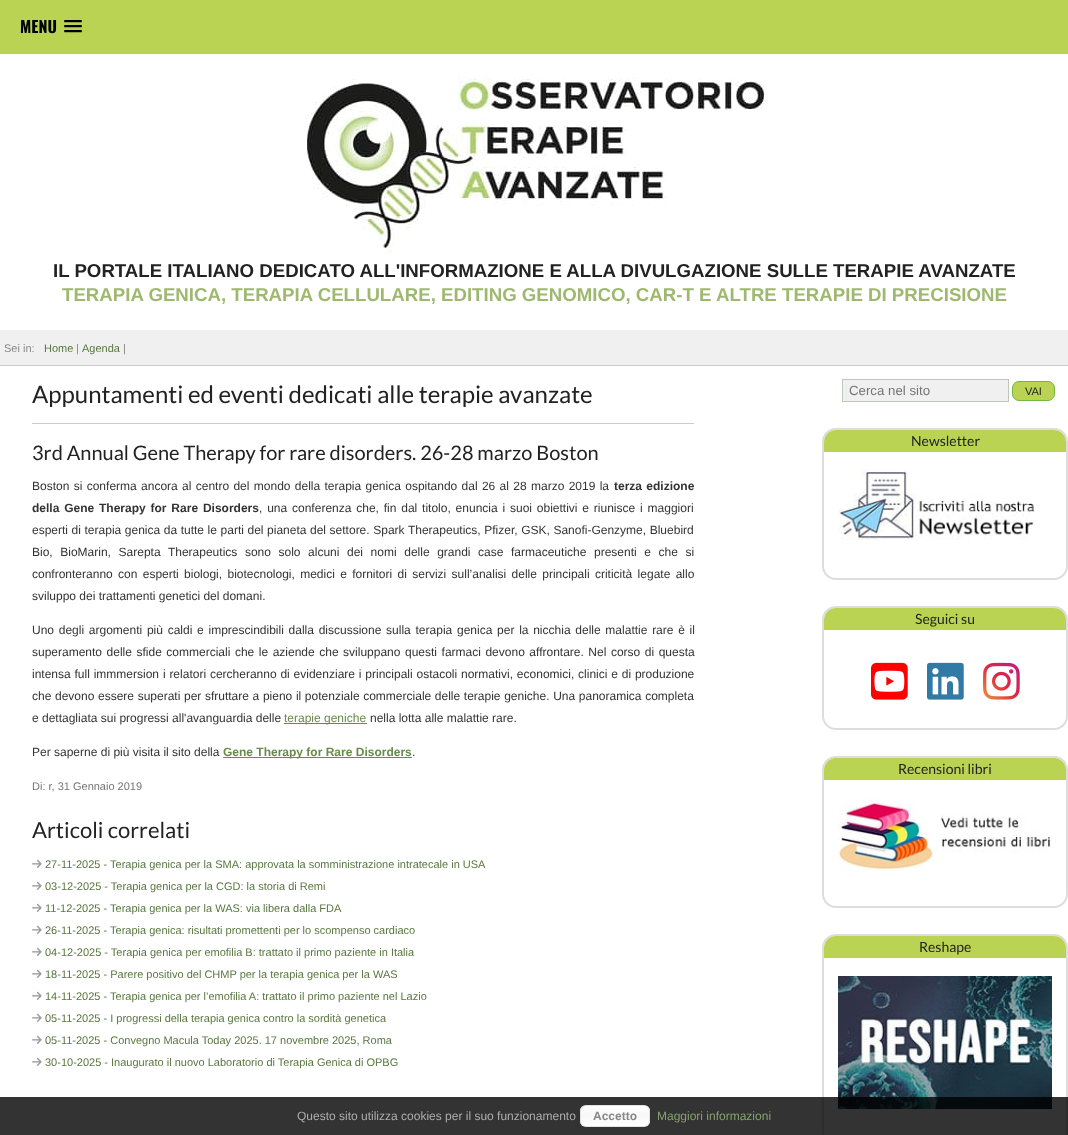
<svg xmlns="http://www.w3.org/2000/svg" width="1068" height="1135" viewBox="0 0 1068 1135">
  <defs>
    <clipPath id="clip1"><rect x="580" y="1105" width="70" height="22" rx="6"/></clipPath>
    <linearGradient id="g1" gradientUnits="userSpaceOnUse" x1="615" y1="1106" x2="615" y2="1126"><stop offset="0" stop-color="rgb(255,255,255)"/><stop offset="0.47" stop-color="rgb(248,248,248)"/><stop offset="1" stop-color="rgb(255,255,255)"/></linearGradient>
  </defs>
  <rect width="100%" height="100%" fill="rgb(255,255,255)"/>
  <rect x="0" y="0" width="1068" height="54" fill="rgb(186,211,83)"/>
  <text x="20" y="33" font-family="Oswald" font-size="16" font-weight="bold" fill="rgb(0,0,0)">MENU</text>
  <path d="M64 21.5C63 23.5 67.5 23 67.5 23H78.5C78.5 23 83 23.5 82 21.5C81 22.5 74.5 22 73 22C71.5 22 65 22.5 64 21.5Z" fill="rgb(140,158,62)"/>
  <rect x="64" y="20" width="18" height="2" rx="1" fill="rgb(0,0,0)"/>
  <path d="M64 26.5C63 28.5 67.5 28 67.5 28H78.5C78.5 28 83 28.5 82 26.5C81 27.5 74.5 27 73 27C71.5 27 65 27.5 64 26.5Z" fill="rgb(140,158,62)"/>
  <rect x="64" y="25" width="18" height="2" rx="1" fill="rgb(0,0,0)"/>
  <path d="M64 31.5C63 33.5 67.5 33 67.5 33H78.5C78.5 33 83 33.5 82 31.5C81 32.5 74.5 32 73 32C71.5 32 65 32.5 64 31.5Z" fill="rgb(140,158,62)"/>
  <rect x="64" y="30" width="18" height="2" rx="1" fill="rgb(0,0,0)"/>
  <image x="306" y="71" width="464" height="182" href="pic1.png"/>
  <text x="53" y="277" font-family="Liberation Sans" font-size="18.67" font-weight="bold" fill="rgb(34,34,34)">IL PORTALE ITALIANO DEDICATO ALL'INFORMAZIONE E ALLA DIVULGAZIONE SULLE TERAPIE AVANZATE</text>
  <text x="62" y="301" font-family="Liberation Sans" font-size="18.67" font-weight="bold" fill="rgb(159,184,112)">TERAPIA GENICA, TERAPIA CELLULARE, EDITING GENOMICO, CAR-T E ALTRE TERAPIE DI PRECISIONE</text>
  <rect x="0" y="330" width="1068" height="35" fill="rgb(240,240,240)"/>
  <rect x="0" y="365" width="1068" height="1" fill="rgb(204,204,204)"/>
  <text x="4" y="352" font-family="Liberation Sans" font-size="11" fill="rgb(136,136,136)">Sei in:</text>
  <text x="44" y="352" font-family="Liberation Sans" font-size="11" fill="rgb(90,120,64)">Home</text>
  <text x="76" y="352" font-family="Liberation Sans" font-size="11" fill="rgb(136,136,136)">|</text>
  <text x="82" y="352" font-family="Liberation Sans" font-size="11" fill="rgb(90,120,64)">Agenda</text>
  <text x="123" y="352" font-family="Liberation Sans" font-size="11" fill="rgb(136,136,136)">|</text>
  <rect x="32" y="423" width="662" height="1" fill="rgb(204,204,204)"/>
  <text x="32" y="403" font-family="Lato" font-size="24" fill="rgb(34,34,34)">Appuntamenti ed eventi dedicati alle terapie avanzate</text>
  <text x="32" y="460" font-family="Lato" font-size="20" fill="rgb(34,34,34)">3rd Annual Gene Therapy for rare disorders. 26-28 marzo Boston</text>
  <text x="32" y="490" word-spacing="1" font-family="Liberation Sans" font-size="12" fill="rgb(51,51,51)">Boston si conferma ancora al centro del mondo della terapia genica ospitando dal 26 al 28 marzo 2019 la</text>
  <g font-family="Liberation Sans" font-size="12" font-weight="bold" fill="rgb(51,51,51)">
    <text x="614" y="490" word-spacing="1">terza edizione</text>
    <text x="32" y="512" word-spacing="1.5">della Gene Therapy for Rare Disorders</text>
  </g>
  <g font-family="Liberation Sans" font-size="12" fill="rgb(51,51,51)">
    <text x="259" y="512" word-spacing="1.5">, una conferenza che, fin dal titolo, enuncia i suoi obiettivi e riunisce i maggiori</text>
    <text>
      <tspan x="32" y="534" word-spacing="0.25">esperti di terapia genica da tutte le parti del pianeta del settore. Spark Therapeutics, Pfizer, GSK, Sanofi-Genzyme, Bluebird</tspan>
      <tspan x="32" y="556" word-spacing="4.25">Bio, BioMarin, Sarepta Therapeutics sono solo alcuni dei nomi delle grandi case farmaceutiche presenti e che si</tspan>
      <tspan x="32" y="578" word-spacing="2">confronteranno con esperti biologi, biotecnologi, medici e fornitori di servizi sull’analisi delle principali criticità legate allo</tspan>
      <tspan x="32" y="600">sviluppo dei trattamenti genetici del domani.</tspan>
    </text>
    <text>
      <tspan x="32" y="634" word-spacing="1.4">Uno degli argomenti più caldi e imprescindibili dalla discussione sulla terapia genica per la nicchia delle malattie rare è il</tspan>
      <tspan x="32" y="656" word-spacing="1.2">superamento delle sfide commerciali che le aziende che sviluppano questi farmaci devono affrontare. Nel corso di questa</tspan>
      <tspan x="32" y="678" word-spacing="0.5">intensa full immmersion i relatori cercheranno di evidenziare i principali ostacoli normativi, economici, clinici e di produzione</tspan>
      <tspan x="32" y="700" word-spacing="0.3">che devono essere superati per sfruttare a pieno il potenziale commerciale delle terapie geniche. Una panoramica completa</tspan>
      <tspan x="32" y="722">e dettagliata sui progressi all'avanguardia delle</tspan>
    </text>
  </g>
  <rect x="284" y="723" width="83" height="1" fill="rgb(103,139,72)"/>
  <text x="284" y="722" font-family="Liberation Sans" font-size="12" fill="rgb(103,139,72)">terapie geniche</text>
  <g font-family="Liberation Sans" font-size="12" fill="rgb(51,51,51)">
    <text x="370" y="722">nella lotta alle malattie rare.</text>
    <text x="32" y="756">Per saperne di più visita il sito della</text>
  </g>
  <rect x="223" y="757" width="189" height="1" fill="rgb(103,139,72)"/>
  <text x="223" y="756" font-family="Liberation Sans" font-size="12" font-weight="bold" fill="rgb(103,139,72)">Gene Therapy for Rare Disorders</text>
  <text x="412" y="756" font-family="Liberation Sans" font-size="12" fill="rgb(51,51,51)">.</text>
  <text x="32" y="790" font-family="Liberation Sans" font-size="11" fill="rgb(117,117,117)">Di: r, 31 Gennaio 2019</text>
  <text x="32" y="838" font-family="Lato" font-size="22" fill="rgb(34,34,34)">Articoli correlati</text>
  <image x="32" y="859" width="10" height="9" href="pic2.png"/>
  <text x="45" y="868" font-family="Liberation Sans" font-size="11" fill="rgb(90,120,64)">27-11-2025 - Terapia genica per la SMA: approvata la somministrazione intratecale in USA</text>
  <image x="32" y="881" width="10" height="9" href="pic2.png"/>
  <text x="45" y="890" font-family="Liberation Sans" font-size="11" fill="rgb(90,120,64)">03-12-2025 - Terapia genica per la CGD: la storia di Remi</text>
  <image x="32" y="903" width="10" height="9" href="pic2.png"/>
  <text x="45" y="912" font-family="Liberation Sans" font-size="11" fill="rgb(90,120,64)">11-12-2025 - Terapia genica per la WAS: via libera dalla FDA</text>
  <image x="32" y="925" width="10" height="9" href="pic2.png"/>
  <text x="45" y="934" font-family="Liberation Sans" font-size="11" fill="rgb(90,120,64)">26-11-2025 - Terapia genica: risultati promettenti per lo scompenso cardiaco</text>
  <image x="32" y="947" width="10" height="9" href="pic2.png"/>
  <text x="45" y="956" font-family="Liberation Sans" font-size="11" fill="rgb(90,120,64)">04-12-2025 - Terapia genica per emofilia B: trattato il primo paziente in Italia</text>
  <image x="32" y="969" width="10" height="9" href="pic2.png"/>
  <text x="45" y="978" font-family="Liberation Sans" font-size="11" fill="rgb(90,120,64)">18-11-2025 - Parere positivo del CHMP per la terapia genica per la WAS</text>
  <image x="32" y="991" width="10" height="9" href="pic2.png"/>
  <text x="45" y="1000" font-family="Liberation Sans" font-size="11" fill="rgb(90,120,64)">14-11-2025 - Terapia genica per l’emofilia A: trattato il primo paziente nel Lazio</text>
  <image x="32" y="1013" width="10" height="9" href="pic2.png"/>
  <text x="45" y="1022" font-family="Liberation Sans" font-size="11" fill="rgb(90,120,64)">05-11-2025 - I progressi della terapia genica contro la sordità genetica</text>
  <image x="32" y="1035" width="10" height="9" href="pic2.png"/>
  <text x="45" y="1044" font-family="Liberation Sans" font-size="11" fill="rgb(90,120,64)">05-11-2025 - Convegno Macula Today 2025. 17 novembre 2025, Roma</text>
  <image x="32" y="1057" width="10" height="9" href="pic2.png"/>
  <text x="45" y="1066" font-family="Liberation Sans" font-size="11" fill="rgb(90,120,64)">30-10-2025 - Inaugurato il nuovo Laboratorio di Terapia Genica di OPBG</text>
  <rect x="842.5" y="379.5" width="166" height="22" fill="rgb(240,240,240)" stroke="rgb(190,200,182)"/>
  <text x="849" y="395" font-family="Liberation Sans" font-size="13.25" fill="rgb(117,117,117)">Cerca nel sito</text>
  <rect x="1012.5" y="381.5" width="42" height="19" rx="6.5" fill="rgb(186,211,83)" stroke="rgb(113,183,69)"/>
  <text x="1025" y="395" font-family="Liberation Sans" font-size="11" fill="rgb(34,34,34)">VAI</text>
  <rect x="823" y="429" width="244" height="150" rx="13" fill="none" stroke="rgb(221,221,221)" stroke-width="2"/>
  <path d="M836 430H1054C1060.5 430 1066 435.5 1066 442V452H824V442C824 435.5 829.5 430 836 430Z" fill="rgb(186,211,83)"/>
  <text x="911" y="446" font-family="Lato" font-size="14" fill="rgb(34,34,34)">Newsletter</text>
  <image x="838" y="470" width="197" height="70" href="pic3.png"/>
  <rect x="823" y="607" width="244" height="122" rx="13" fill="none" stroke="rgb(221,221,221)" stroke-width="2"/>
  <path d="M836 608H1054C1060.5 608 1066 613.5 1066 620V630H824V620C824 613.5 829.5 608 836 608Z" fill="rgb(186,211,83)"/>
  <text x="915" y="624" font-family="Lato" font-size="14" fill="rgb(34,34,34)">Seguici su</text>
  <image x="871" y="662" width="37" height="38" href="pic4.png"/>
  <image x="927" y="662" width="37" height="38" href="pic5.png"/>
  <image x="983" y="662" width="37" height="38" href="pic6.png"/>
  <rect x="823" y="757" width="244" height="150" rx="13" fill="none" stroke="rgb(221,221,221)" stroke-width="2"/>
  <path d="M836 758H1054C1060.5 758 1066 763.5 1066 770V780H824V770C824 763.5 829.5 758 836 758Z" fill="rgb(186,211,83)"/>
  <text x="898" y="774" font-family="Lato" font-size="14" fill="rgb(34,34,34)">Recensioni libri</text>
  <image x="838" y="798" width="214" height="73" href="pic7.png"/>
  <rect x="823" y="935" width="244" height="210" rx="13" fill="none" stroke="rgb(221,221,221)" stroke-width="2"/>
  <path d="M836 936H1054C1060.5 936 1066 941.5 1066 948V958H824V948C824 941.5 829.5 936 836 936Z" fill="rgb(186,211,83)"/>
  <text x="919" y="952" font-family="Lato" font-size="14" fill="rgb(34,34,34)">Reshape</text>
  <image x="838" y="976" width="214" height="133" href="pic8.png"/>
  <rect x="0" y="1097" width="1068" height="38" fill="rgba(0,0,0,0.8)"/>
  <text x="297" y="1120" font-family="Liberation Sans" font-size="12" fill="rgb(173,173,173)">Questo sito utilizza cookies per il suo funzionamento</text>
  <g clip-path="url(#clip1)">
    <rect x="580" y="1106" width="70" height="20" fill="url(#g1)"/>
  </g>
  <rect x="580.5" y="1105.5" width="69" height="21" rx="5.5" fill="none" stroke="rgb(227,227,227)"/>
  <text x="593" y="1120" font-family="Liberation Sans" font-size="12" font-weight="bold" fill="rgb(136,136,136)">Accetto</text>
  <text x="657" y="1120" font-family="Liberation Sans" font-size="12" fill="rgb(133,162,109)">Maggiori informazioni</text>
</svg>
